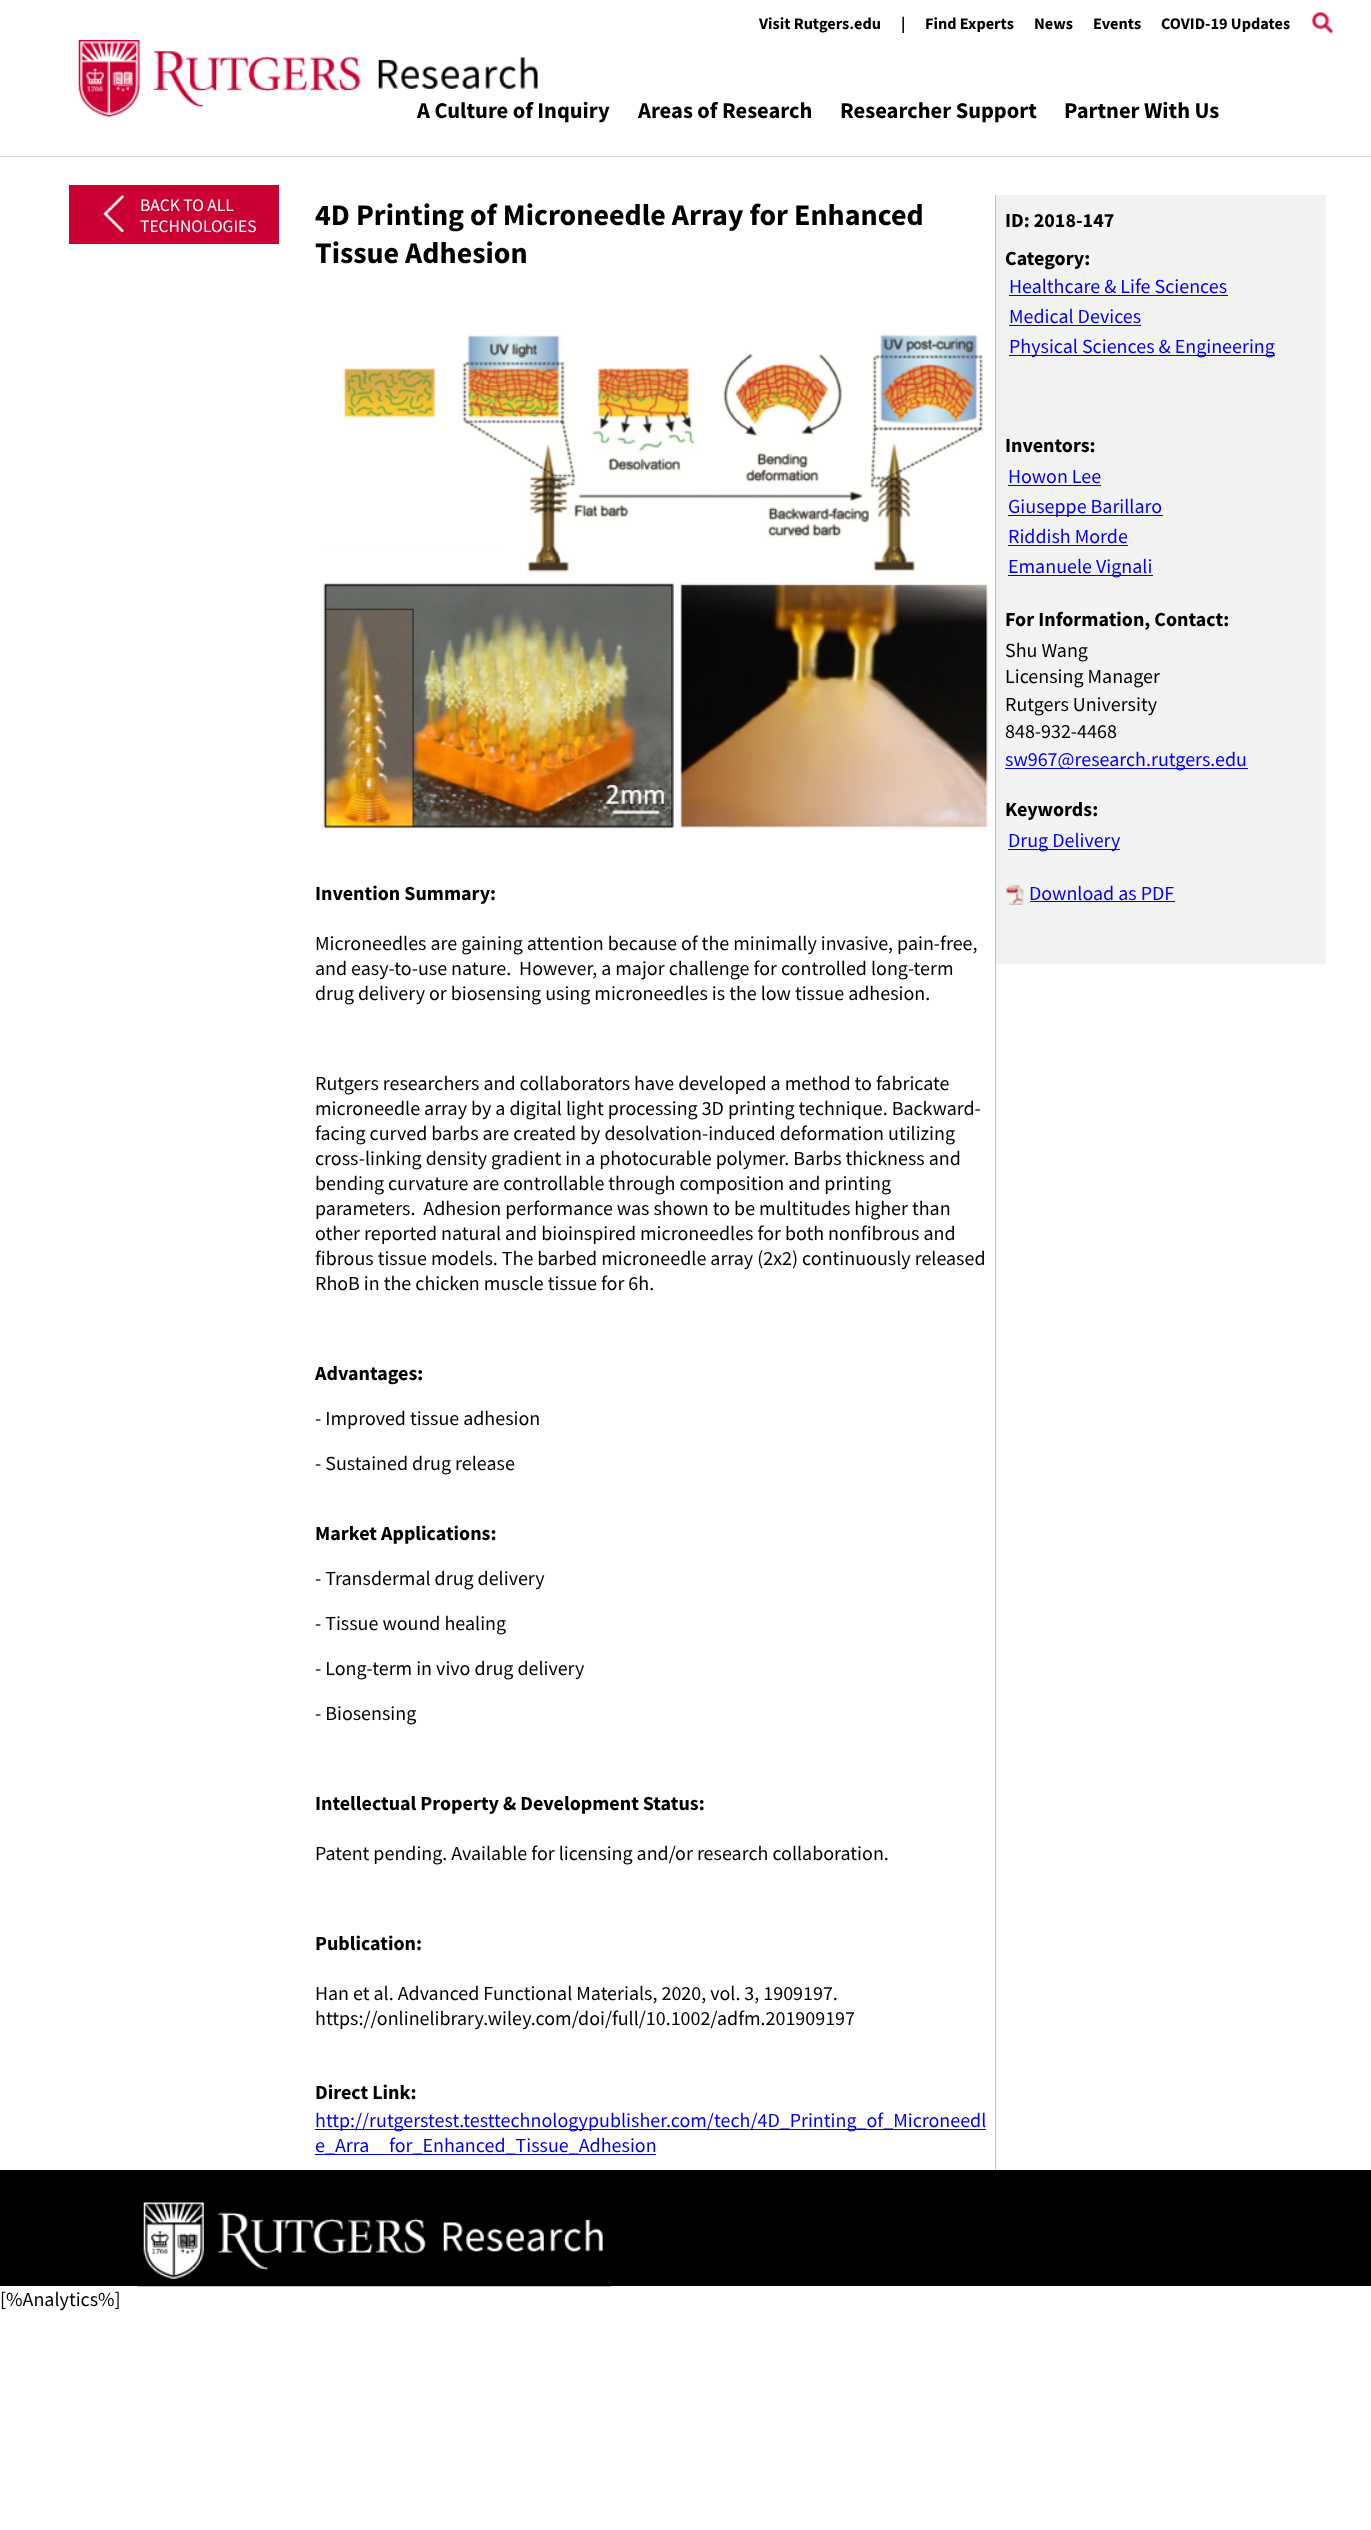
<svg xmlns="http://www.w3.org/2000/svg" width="1371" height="2530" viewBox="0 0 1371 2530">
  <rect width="100%" height="100%" fill="rgb(255,255,255)"/>
  <rect x="0" y="156" width="1371" height="1" fill="rgb(211,211,211)"/>
  <g font-family="Source Sans Pro" font-size="16.25" font-weight="bold" fill="rgb(0,0,0)">
    <text x="759" y="29">Visit Rutgers.edu</text>
    <text x="901" y="29">|</text>
    <text x="925" y="29">Find Experts</text>
    <text x="1034" y="29">News</text>
    <text x="1093" y="29">Events</text>
    <text x="1161" y="29">COVID-19 Updates</text>
  </g>
  <image x="1312" y="12" width="21" height="22" href="pic1.png"/>
  <image x="78" y="40" width="460" height="78" href="pic2.png"/>
  <g font-family="Source Sans Pro" font-size="22.5" font-weight="bold" fill="rgb(0,0,0)">
    <text x="417" y="118">A Culture of Inquiry</text>
    <text x="638" y="118">Areas of Research</text>
    <text x="840" y="118">Researcher Support</text>
    <text x="1064" y="118">Partner With Us</text>
  </g>
  <rect x="69" y="185" width="210" height="59" fill="rgb(204,0,51)"/>
  <image x="103" y="195" width="21" height="38" href="pic3.png"/>
  <g font-family="Source Sans Pro" font-size="17.5" fill="rgb(255,255,255)">
    <text>
      <tspan x="140" y="211">BACK TO ALL</tspan>
      <tspan x="140" y="232">TECHNOLOGIES</tspan>
    </text>
  </g>
  <g font-family="Source Sans Pro" font-size="30" font-weight="bold" fill="rgb(0,0,0)">
    <text>
      <tspan x="315" y="225">4D Printing of Microneedle Array for Enhanced</tspan>
      <tspan x="315" y="263">Tissue Adhesion</tspan>
    </text>
  </g>
  <image x="323" y="334" width="665" height="495" href="pic4.png"/>
  <text x="315" y="900" font-family="Source Sans Pro" font-size="20" font-weight="bold" fill="rgb(0,0,0)">Invention Summary:</text>
  <g font-family="Source Sans Pro" font-size="20" fill="rgb(0,0,0)">
    <text xml:space="preserve"><tspan x="315" y="950">Microneedles are gaining attention because of the minimally invasive, pain-free,</tspan><tspan x="315" y="975">and easy-to-use nature.  However, a major challenge for controlled long-term</tspan><tspan x="315" y="1000">drug delivery or biosensing using microneedles is the low tissue adhesion.</tspan></text>
    <text xml:space="preserve"><tspan x="315" y="1090">Rutgers researchers and collaborators have developed a method to fabricate</tspan><tspan x="315" y="1115">microneedle array by a digital light processing 3D printing technique. Backward-</tspan><tspan x="315" y="1140">facing curved barbs are created by desolvation-induced deformation utilizing</tspan><tspan x="315" y="1165">cross-linking density gradient in a photocurable polymer. Barbs thickness and</tspan><tspan x="315" y="1190">bending curvature are controllable through composition and printing</tspan><tspan x="315" y="1215">parameters.  Adhesion performance was shown to be multitudes higher than</tspan><tspan x="315" y="1240">other reported natural and bioinspired microneedles for both nonfibrous and</tspan><tspan x="315" y="1265">fibrous tissue models. The barbed microneedle array (2x2) continuously released</tspan><tspan x="315" y="1290">RhoB in the chicken muscle tissue for 6h.</tspan></text>
  </g>
  <text x="315" y="1380" font-family="Source Sans Pro" font-size="20" font-weight="bold" fill="rgb(0,0,0)">Advantages:</text>
  <g font-family="Source Sans Pro" font-size="20" fill="rgb(0,0,0)">
    <text x="315" y="1425">- Improved tissue adhesion</text>
    <text x="315" y="1470">- Sustained drug release</text>
  </g>
  <text x="315" y="1540" font-family="Source Sans Pro" font-size="20" font-weight="bold" fill="rgb(0,0,0)">Market Applications:</text>
  <g font-family="Source Sans Pro" font-size="20" fill="rgb(0,0,0)">
    <text x="315" y="1585">- Transdermal drug delivery</text>
    <text x="315" y="1630">- Tissue wound healing</text>
    <text x="315" y="1675">- Long-term in vivo drug delivery</text>
    <text x="315" y="1720">- Biosensing</text>
  </g>
  <text x="315" y="1810" font-family="Source Sans Pro" font-size="20" font-weight="bold" fill="rgb(0,0,0)">Intellectual Property &amp; Development Status:</text>
  <text x="315" y="1860" font-family="Source Sans Pro" font-size="20" fill="rgb(0,0,0)">Patent pending. Available for licensing and/or research collaboration.</text>
  <text x="315" y="1950" font-family="Source Sans Pro" font-size="20" font-weight="bold" fill="rgb(0,0,0)">Publication:</text>
  <g font-family="Source Sans Pro" font-size="20" fill="rgb(0,0,0)">
    <text>
      <tspan x="315" y="2000">Han et al. Advanced Functional Materials, 2020, vol. 3, 1909197.</tspan>
      <tspan x="315" y="2025">https://onlinelibrary.wiley.com/doi/full/10.1002/adfm.201909197</tspan>
    </text>
  </g>
  <text x="315" y="2099" font-family="Source Sans Pro" font-size="20" font-weight="bold" fill="rgb(0,0,0)">Direct Link:</text>
  <rect x="315" y="2129" width="671" height="1" fill="rgb(0,0,238)"/>
  <text x="315" y="2127" font-family="Source Sans Pro" font-size="20" fill="rgb(0,0,238)">http://rutgerstest.testtechnologypublisher.com/tech/4D_Printing_of_Microneedl</text>
  <rect x="315" y="2154" width="341" height="1" fill="rgb(0,0,238)"/>
  <g font-family="Source Sans Pro" font-size="20" fill="rgb(0,0,238)">
    <text x="315" y="2152">e_Arra</text>
    <text x="389" y="2152">for_Enhanced_Tissue_Adhesion</text>
  </g>
  <rect x="995" y="195" width="1" height="1975" fill="rgb(192,192,192)"/>
  <rect x="996" y="195" width="330" height="769" fill="rgb(242,242,242)"/>
  <g font-family="Source Sans Pro" font-size="20" font-weight="bold" fill="rgb(0,0,0)">
    <text>
      <tspan x="1005" y="227">ID: 2018-147</tspan>
      <tspan x="1005" y="265">Category:</tspan>
    </text>
  </g>
  <text x="1009" y="293" font-family="Source Sans Pro" font-size="20" fill="rgb(0,0,238)">Healthcare &amp; Life Sciences</text>
  <rect x="1009" y="295" width="219" height="1" fill="rgb(0,0,238)"/>
  <text x="1009" y="323" font-family="Source Sans Pro" font-size="20" fill="rgb(0,0,238)">Medical Devices</text>
  <rect x="1009" y="325" width="132" height="1" fill="rgb(0,0,238)"/>
  <rect x="1009" y="355" width="266" height="1" fill="rgb(0,0,238)"/>
  <text x="1009" y="353" font-family="Source Sans Pro" font-size="20" fill="rgb(0,0,238)">Physical Sciences &amp; Engineering</text>
  <text x="1005" y="452" font-family="Source Sans Pro" font-size="20" font-weight="bold" fill="rgb(0,0,0)">Inventors:</text>
  <text x="1008" y="483" font-family="Source Sans Pro" font-size="20" fill="rgb(0,0,238)">Howon Lee</text>
  <rect x="1008" y="485" width="93" height="1" fill="rgb(0,0,238)"/>
  <rect x="1008" y="515" width="155" height="1" fill="rgb(0,0,238)"/>
  <g font-family="Source Sans Pro" font-size="20" fill="rgb(0,0,238)">
    <text>
      <tspan x="1008" y="513">Giuseppe Barillaro</tspan>
      <tspan x="1008" y="543">Riddish Morde</tspan>
    </text>
  </g>
  <rect x="1008" y="545" width="120" height="1" fill="rgb(0,0,238)"/>
  <rect x="1008" y="575" width="145" height="1" fill="rgb(0,0,238)"/>
  <text x="1008" y="573" font-family="Source Sans Pro" font-size="20" fill="rgb(0,0,238)">Emanuele Vignali</text>
  <text x="1005" y="626" font-family="Source Sans Pro" font-size="20" font-weight="bold" fill="rgb(0,0,0)">For Information, Contact:</text>
  <g font-family="Source Sans Pro" font-size="20" fill="rgb(0,0,0)">
    <text>
      <tspan x="1005" y="657">Shu Wang</tspan>
      <tspan x="1005" y="683">Licensing Manager</tspan>
      <tspan x="1005" y="711">Rutgers University</tspan>
      <tspan x="1005" y="738">848-932-4468</tspan>
    </text>
  </g>
  <rect x="1005" y="768" width="243" height="1" fill="rgb(0,0,238)"/>
  <text x="1005" y="766" font-family="Source Sans Pro" font-size="20" fill="rgb(0,0,238)">sw967@research.rutgers.edu</text>
  <text x="1005" y="816" font-family="Source Sans Pro" font-size="20" font-weight="bold" fill="rgb(0,0,0)">Keywords:</text>
  <rect x="1008" y="849" width="112" height="1" fill="rgb(0,0,238)"/>
  <text x="1008" y="847" font-family="Source Sans Pro" font-size="20" fill="rgb(0,0,238)">Drug Delivery</text>
  <image x="1006" y="885" width="18" height="20" href="pic5.png"/>
  <text x="1029" y="900" font-family="Source Sans Pro" font-size="20" fill="rgb(0,0,238)">Download as PDF</text>
  <rect x="1030" y="901" width="145" height="1" fill="rgb(0,0,238)"/>
  <rect x="0" y="2170" width="1371" height="116" fill="rgb(0,0,0)"/>
  <image x="137" y="2202" width="475" height="85" href="pic6.png"/>
  <text x="0" y="2306" font-family="Source Sans Pro" font-size="20" fill="rgb(0,0,0)">[%Analytics%]</text>
</svg>
